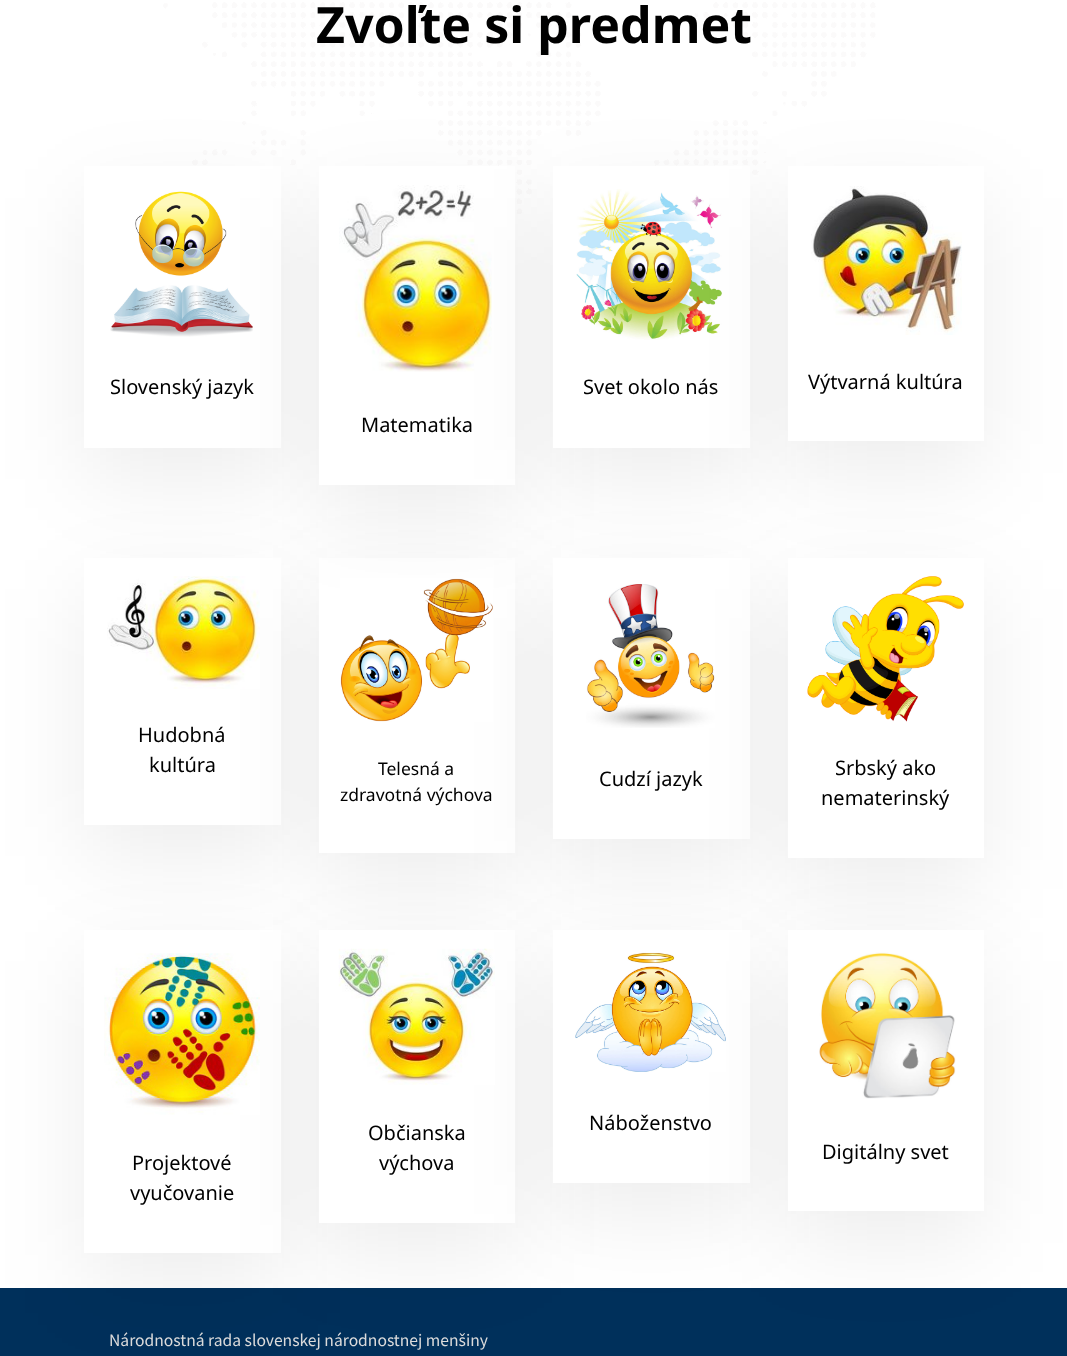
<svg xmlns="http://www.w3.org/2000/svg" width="1067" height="1356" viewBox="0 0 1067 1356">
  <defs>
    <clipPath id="clip1"><path d="M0 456H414V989H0ZM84 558H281V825H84Z" clip-rule="evenodd"/></clipPath>
  </defs>
  <rect width="100%" height="100%" fill="rgb(0,48,91)"/>
  <rect x="0" y="0" width="1067" height="1288" fill="rgb(255,255,255)"/>
  <image x="163" y="2" width="713" height="212" href="pic1.png"/>
  <text x="316" y="43" font-family="Noto Sans" font-size="50" font-weight="bold" fill="rgb(0,0,0)">Zvoľte si predmet</text>
  <g clip-path="url(#clip1)">
    <rect x="84" y="589" width="197" height="267" fill="rgba(0,0,0,0.07)" filter="blur(44px)"/>
  </g>
  <rect x="319" y="589" width="196" height="295" fill="rgba(0,0,0,0.07)" filter="blur(44px)"/>
  <rect x="319" y="558" width="196" height="295" fill="rgb(255,255,255)"/>
  <rect x="84" y="198" width="197" height="281" fill="rgba(0,0,0,0.07)" filter="blur(44px)"/>
  <rect x="84" y="166" width="197" height="282" fill="rgb(255,255,255)"/>
  <image x="110" y="191" width="143" height="146" href="pic2.png"/>
  <text x="110" y="394" font-family="Noto Sans" font-size="20" fill="rgb(0,0,0)">Slovenský jazyk</text>
  <rect x="553" y="589" width="197" height="281" fill="rgba(0,0,0,0.07)" filter="blur(44px)"/>
  <rect x="553" y="558" width="197" height="281" fill="rgb(255,255,255)"/>
  <rect x="319" y="198" width="196" height="318" fill="rgba(0,0,0,0.07)" filter="blur(44px)"/>
  <rect x="319" y="166" width="196" height="319" fill="rgb(255,255,255)"/>
  <image x="339" y="185" width="153" height="187" href="pic5.png"/>
  <rect x="788" y="589" width="196" height="300" fill="rgba(0,0,0,0.07)" filter="blur(44px)"/>
  <rect x="788" y="558" width="196" height="300" fill="rgb(255,255,255)"/>
  <rect x="553" y="198" width="197" height="281" fill="rgba(0,0,0,0.07)" filter="blur(44px)"/>
  <rect x="553" y="166" width="197" height="282" fill="rgb(255,255,255)"/>
  <image x="576" y="189" width="146" height="151" href="pic3.png"/>
  <text x="583" y="394" font-family="Noto Sans" font-size="20" fill="rgb(0,0,0)">Svet okolo nás</text>
  <rect x="788" y="198" width="196" height="275" fill="rgba(0,0,0,0.07)" filter="blur(44px)"/>
  <rect x="788" y="166" width="196" height="275" fill="rgb(255,255,255)"/>
  <image x="811" y="186" width="151" height="149" href="pic4.png"/>
  <g font-family="Noto Sans" font-size="20" fill="rgb(0,0,0)">
    <text x="808" y="389">Výtvarná kultúra</text>
    <text x="361" y="432">Matematika</text>
  </g>
  <image x="107" y="576" width="153" height="113" href="pic6.png"/>
  <g font-family="Noto Sans" font-size="20" fill="rgb(0,0,0)">
    <text x="138" y="742">Hudobná</text>
    <text x="149" y="772">kultúra</text>
  </g>
  <image x="340" y="578" width="153" height="144" href="pic7.png"/>
  <g font-family="Noto Sans" font-size="17.5" fill="rgb(0,0,0)">
    <text x="378" y="775">Telesná a</text>
    <text x="340" y="801">zdravotná výchova</text>
  </g>
  <image x="586" y="584" width="129" height="144" href="pic8.png"/>
  <text x="599" y="786" font-family="Noto Sans" font-size="20" fill="rgb(0,0,0)">Cudzí jazyk</text>
  <image x="807" y="576" width="157" height="146" href="pic9.png"/>
  <g font-family="Noto Sans" font-size="20" fill="rgb(0,0,0)">
    <text x="835" y="775">Srbský ako</text>
    <text x="821" y="805">nematerinský</text>
  </g>
  <rect x="84" y="961" width="197" height="323" fill="rgba(0,0,0,0.07)" filter="blur(44px)"/>
  <rect x="84" y="930" width="197" height="323" fill="rgb(255,255,255)"/>
  <rect x="319" y="961" width="196" height="293" fill="rgba(0,0,0,0.07)" filter="blur(44px)"/>
  <image x="104" y="953" width="156" height="162" href="pic10.png"/>
  <g font-family="Noto Sans" font-size="20" fill="rgb(0,0,0)">
    <text x="132" y="1170">Projektové</text>
    <text x="130" y="1200">vyučovanie</text>
  </g>
  <rect x="319" y="930" width="196" height="293" fill="rgb(255,255,255)"/>
  <rect x="553" y="961" width="197" height="253" fill="rgba(0,0,0,0.07)" filter="blur(44px)"/>
  <image x="338" y="948" width="157" height="137" href="pic11.png"/>
  <g font-family="Noto Sans" font-size="20" fill="rgb(0,0,0)">
    <text x="368" y="1140">Občianska</text>
    <text x="379" y="1170">výchova</text>
  </g>
  <rect x="553" y="930" width="197" height="253" fill="rgb(255,255,255)"/>
  <rect x="788" y="961" width="196" height="282" fill="rgba(0,0,0,0.07)" filter="blur(44px)"/>
  <image x="575" y="952" width="151" height="120" href="pic12.png"/>
  <text x="589" y="1130" font-family="Noto Sans" font-size="20" fill="rgb(0,0,0)">Náboženstvo</text>
  <rect x="788" y="930" width="196" height="281" fill="rgb(255,255,255)"/>
  <image x="819" y="952" width="137" height="147" href="pic13.png"/>
  <text x="822" y="1159" font-family="Noto Sans" font-size="20" fill="rgb(0,0,0)">Digitálny svet</text>
  <text x="109" y="1346" font-family="Source Sans Pro" font-size="17.5" fill="rgb(219,219,219)">Národnostná rada slovenskej národnostnej menšiny</text>
</svg>
